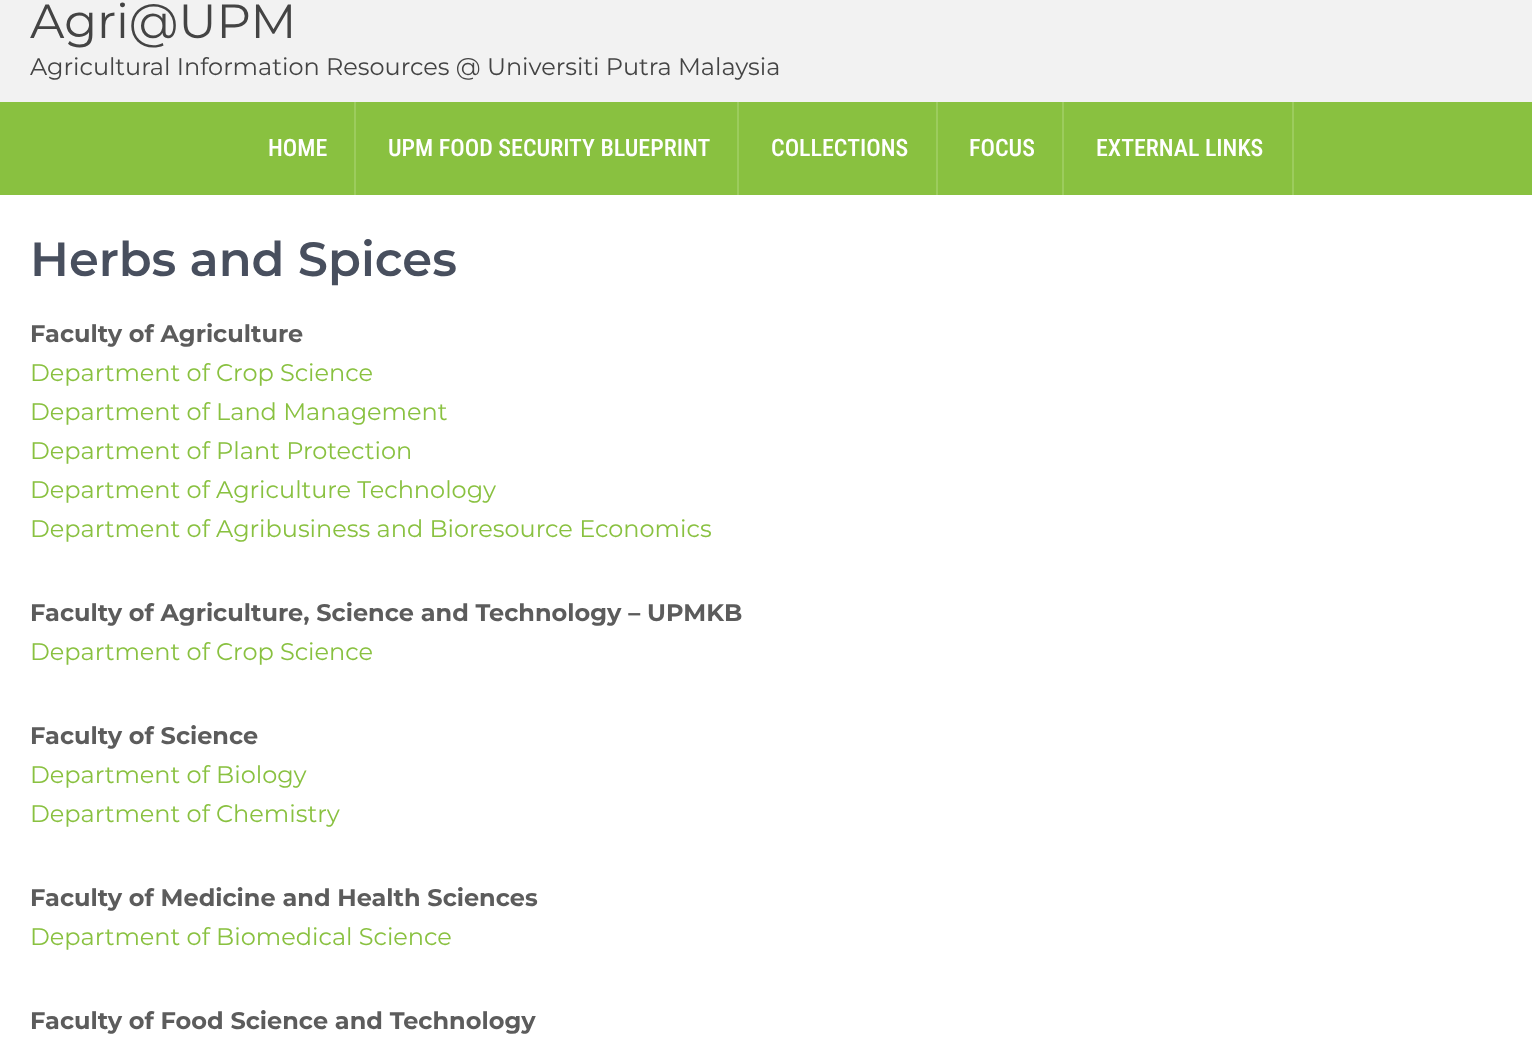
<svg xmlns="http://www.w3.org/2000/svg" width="1532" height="1043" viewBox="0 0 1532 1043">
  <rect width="100%" height="100%" fill="rgb(255,255,255)"/>
  <rect x="0" y="0" width="1532" height="102" fill="rgb(242,242,242)"/>
  <text x="30" y="38" font-family="Montserrat" font-size="48" fill="rgb(68,68,68)">Agri@UPM</text>
  <text x="30" y="75" font-family="Montserrat" font-size="24" fill="rgb(68,68,68)">Agricultural Information Resources @ Universiti Putra Malaysia</text>
  <rect x="0" y="102" width="1532" height="93" fill="rgb(137,193,64)"/>
  <rect x="354" y="102" width="2" height="93" fill="rgb(156,204,93)"/>
  <text x="268" y="156" font-family="Roboto Condensed" font-size="24" font-weight="500" fill="rgb(255,255,255)">HOME</text>
  <rect x="737" y="102" width="2" height="93" fill="rgb(156,204,93)"/>
  <text x="388" y="156" font-family="Roboto Condensed" font-size="24" font-weight="500" fill="rgb(255,255,255)">UPM FOOD SECURITY BLUEPRINT</text>
  <rect x="936" y="102" width="2" height="93" fill="rgb(156,204,93)"/>
  <text x="771" y="156" font-family="Roboto Condensed" font-size="24" font-weight="500" fill="rgb(255,255,255)">COLLECTIONS</text>
  <rect x="1062" y="102" width="2" height="93" fill="rgb(156,204,93)"/>
  <text x="969" y="156" font-family="Roboto Condensed" font-size="24" font-weight="500" fill="rgb(255,255,255)">FOCUS</text>
  <rect x="1292" y="102" width="2" height="93" fill="rgb(156,204,93)"/>
  <text x="1096" y="156" font-family="Roboto Condensed" font-size="24" font-weight="500" fill="rgb(255,255,255)">EXTERNAL LINKS</text>
  <text x="30" y="276" font-family="Montserrat" font-size="48" font-weight="600" fill="rgb(72,79,94)">Herbs and Spices</text>
  <text x="30" y="342" font-family="Montserrat" font-size="24" font-weight="bold" fill="rgb(92,92,92)">Faculty of Agriculture</text>
  <g font-family="Montserrat" font-size="24" fill="rgb(137,193,64)">
    <text>
      <tspan x="30" y="381">Department of Crop Science</tspan>
      <tspan x="30" y="420">Department of Land Management</tspan>
      <tspan x="30" y="459">Department of Plant Protection</tspan>
      <tspan x="30" y="498">Department of Agriculture Technology</tspan>
      <tspan x="30" y="537">Department of Agribusiness and Bioresource Economics</tspan>
    </text>
  </g>
  <text x="30" y="621" font-family="Montserrat" font-size="24" font-weight="bold" fill="rgb(92,92,92)">Faculty of Agriculture, Science and Technology – UPMKB</text>
  <text x="30" y="660" font-family="Montserrat" font-size="24" fill="rgb(137,193,64)">Department of Crop Science</text>
  <text x="30" y="744" font-family="Montserrat" font-size="24" font-weight="bold" fill="rgb(92,92,92)">Faculty of Science</text>
  <g font-family="Montserrat" font-size="24" fill="rgb(137,193,64)">
    <text>
      <tspan x="30" y="783">Department of Biology</tspan>
      <tspan x="30" y="822">Department of Chemistry</tspan>
    </text>
  </g>
  <text x="30" y="906" font-family="Montserrat" font-size="24" font-weight="bold" fill="rgb(92,92,92)">Faculty of Medicine and Health Sciences</text>
  <text x="30" y="945" font-family="Montserrat" font-size="24" fill="rgb(137,193,64)">Department of Biomedical Science</text>
  <text x="30" y="1029" font-family="Montserrat" font-size="24" font-weight="bold" fill="rgb(92,92,92)">Faculty of Food Science and Technology</text>
</svg>
